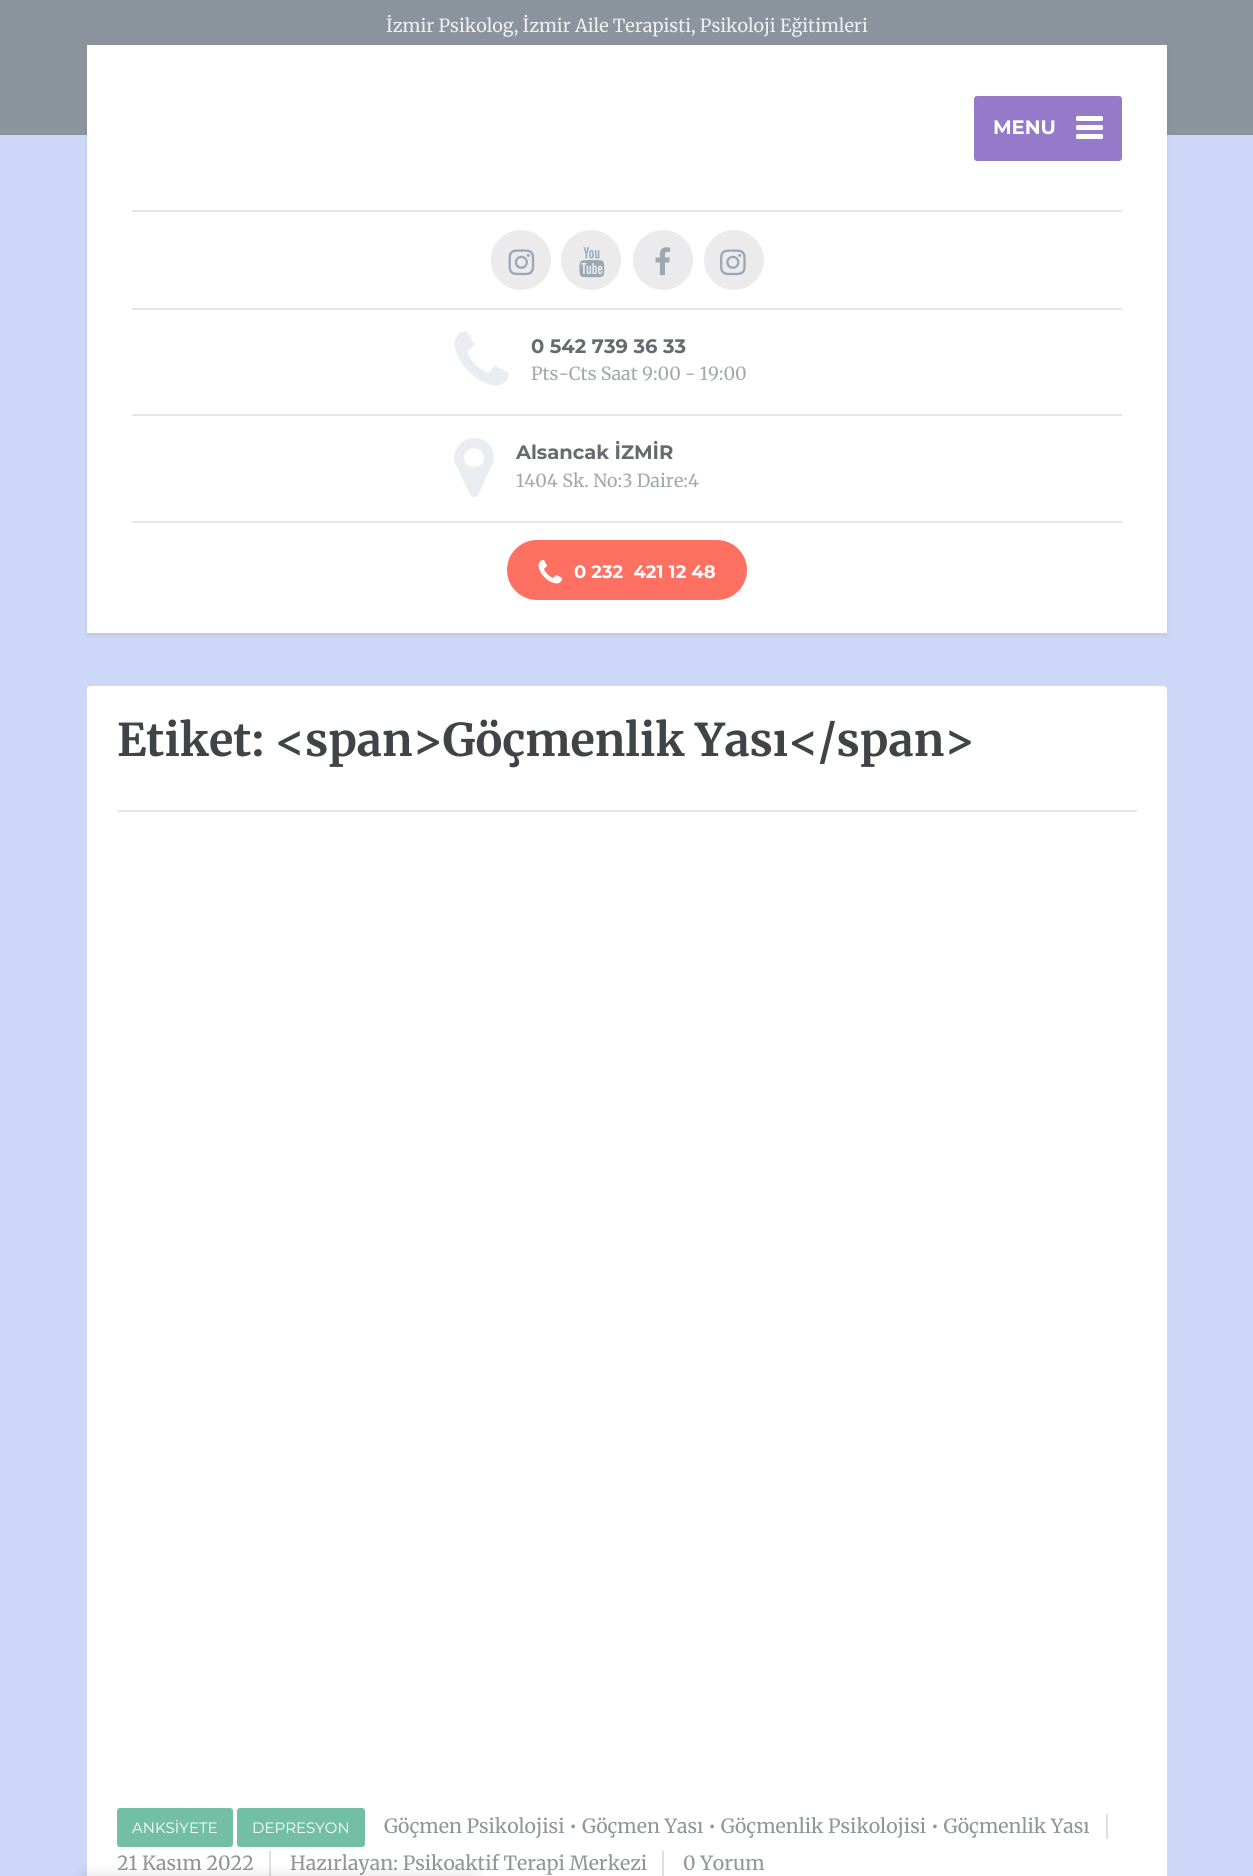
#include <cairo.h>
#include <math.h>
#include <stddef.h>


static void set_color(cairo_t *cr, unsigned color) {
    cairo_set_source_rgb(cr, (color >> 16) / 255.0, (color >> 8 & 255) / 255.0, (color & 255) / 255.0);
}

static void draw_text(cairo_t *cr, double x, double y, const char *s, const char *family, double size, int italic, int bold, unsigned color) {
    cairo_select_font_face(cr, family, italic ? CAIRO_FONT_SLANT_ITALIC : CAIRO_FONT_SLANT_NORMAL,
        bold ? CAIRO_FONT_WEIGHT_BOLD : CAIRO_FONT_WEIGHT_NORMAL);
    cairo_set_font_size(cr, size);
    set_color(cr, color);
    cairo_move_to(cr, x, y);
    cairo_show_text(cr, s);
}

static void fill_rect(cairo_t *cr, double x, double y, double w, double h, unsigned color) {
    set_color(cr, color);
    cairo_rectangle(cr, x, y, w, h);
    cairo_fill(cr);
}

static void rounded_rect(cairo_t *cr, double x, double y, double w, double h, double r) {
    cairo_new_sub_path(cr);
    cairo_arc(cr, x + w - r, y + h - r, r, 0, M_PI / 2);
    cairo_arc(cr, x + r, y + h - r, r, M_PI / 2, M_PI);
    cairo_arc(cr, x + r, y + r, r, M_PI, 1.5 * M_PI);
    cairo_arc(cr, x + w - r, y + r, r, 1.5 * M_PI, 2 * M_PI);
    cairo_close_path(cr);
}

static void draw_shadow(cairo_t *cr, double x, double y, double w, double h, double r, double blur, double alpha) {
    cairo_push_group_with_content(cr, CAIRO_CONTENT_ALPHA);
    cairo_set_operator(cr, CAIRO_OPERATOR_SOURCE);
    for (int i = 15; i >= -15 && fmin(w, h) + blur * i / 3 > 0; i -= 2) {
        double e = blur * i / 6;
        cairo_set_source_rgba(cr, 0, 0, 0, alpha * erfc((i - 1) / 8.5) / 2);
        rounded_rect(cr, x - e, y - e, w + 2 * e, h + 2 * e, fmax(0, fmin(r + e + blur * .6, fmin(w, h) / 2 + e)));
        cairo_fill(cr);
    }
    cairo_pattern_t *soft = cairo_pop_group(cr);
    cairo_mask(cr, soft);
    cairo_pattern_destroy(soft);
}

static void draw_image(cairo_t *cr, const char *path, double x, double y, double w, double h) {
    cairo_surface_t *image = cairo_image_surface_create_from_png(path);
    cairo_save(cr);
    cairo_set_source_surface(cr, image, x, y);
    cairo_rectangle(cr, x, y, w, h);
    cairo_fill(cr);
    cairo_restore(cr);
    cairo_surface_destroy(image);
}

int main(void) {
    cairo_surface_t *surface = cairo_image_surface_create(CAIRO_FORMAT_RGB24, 1253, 1876);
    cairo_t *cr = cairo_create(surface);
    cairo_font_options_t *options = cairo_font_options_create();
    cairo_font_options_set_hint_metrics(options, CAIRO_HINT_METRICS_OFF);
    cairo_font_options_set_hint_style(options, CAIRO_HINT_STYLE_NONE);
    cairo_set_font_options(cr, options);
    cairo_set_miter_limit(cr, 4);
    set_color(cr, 0xCDD7F7);
    cairo_paint(cr);
    fill_rect(cr, 0, 0, 1253, 135, 0x8B949C);
    draw_text(cr, 386, 32, "İzmir Psikolog, İzmir Aile Terapisti, Psikoloji Eğitimleri", "Merriweather", 18, 0, 0, 0xEDEFF2);
    set_color(cr, 0x1F1F1F);
    draw_shadow(cr, 87, 48, 1080, 588, 0, 2, 0.08);
    fill_rect(cr, 87, 45, 1080, 588, 0xFFFFFF);
    set_color(cr, 0x957ACA);
    rounded_rect(cr, 974, 96, 148, 65, 3);
    cairo_fill(cr);
    draw_text(cr, 993, 134, "MENU", "Montserrat", 19.5, 0, 1, 0xFFFFFF);
    rounded_rect(cr, 1076, 116, 27, 5, 1.5);
    cairo_fill(cr);
    rounded_rect(cr, 1076, 125, 27, 5, 1.5);
    cairo_fill(cr);
    rounded_rect(cr, 1076, 134, 27, 5, 1.5);
    cairo_fill(cr);
    fill_rect(cr, 132, 210, 990, 2, 0xE6E6E6);
    set_color(cr, 0xEBEBED);
    cairo_arc(cr, 521, 260, 30, 0, 2 * M_PI);
    cairo_fill(cr);
    draw_image(cr, "assets/img1.png", 508, 249, 27, 27);
    cairo_arc(cr, 591, 260, 30, 0, 2 * M_PI);
    cairo_fill(cr);
    draw_image(cr, "assets/img2.png", 579, 247, 26, 31);
    cairo_arc(cr, 663, 260, 30, 0, 2 * M_PI);
    cairo_fill(cr);
    draw_image(cr, "assets/img3.png", 655, 247, 16, 29);
    cairo_arc(cr, 734, 260, 30, 0, 2 * M_PI);
    cairo_fill(cr);
    draw_image(cr, "assets/img4.png", 720, 249, 26, 27);
    fill_rect(cr, 132, 308, 990, 2, 0xE6E6E6);
    draw_image(cr, "assets/img5.png", 454, 331, 55, 55);
    draw_text(cr, 531, 353, "0 542 739 36 33", "Montserrat", 19.5, 0, 1, 0x676B6F);
    draw_text(cr, 531, 380, "Pts-Cts Saat 9:00 - 19:00", "Merriweather", 18, 0, 0, 0xA4A8AC);
    fill_rect(cr, 132, 414, 990, 2, 0xE6E6E6);
    set_color(cr, 0xE9EDF1);
    cairo_new_path(cr);
    cairo_move_to(cr, 484, 458);
    cairo_curve_to(cr, 484, 470, 464, 470, 464, 458);
    cairo_curve_to(cr, 464, 445, 484, 445, 484, 458);
    cairo_close_path(cr);
    cairo_move_to(cr, 494, 458);
    cairo_curve_to(cr, 494, 433, 457, 430, 454, 458);
    cairo_curve_to(cr, 454, 462, 456, 466, 458, 469);
    cairo_line_to(cr, 470, 495);
    cairo_curve_to(cr, 471, 496, 472, 497, 474, 497);
    cairo_curve_to(cr, 478, 498, 479, 492, 481, 489);
    cairo_line_to(cr, 490, 469);
    cairo_curve_to(cr, 492, 465, 494, 462, 494, 458);
    cairo_close_path(cr);
    cairo_fill(cr);
    draw_text(cr, 516, 459, "Alsancak İZMİR", "Montserrat", 19.5, 0, 1, 0x676B6F);
    draw_text(cr, 516, 487, "1404 Sk. No:3 Daire:4", "Merriweather", 18, 0, 0, 0xA4A8AC);
    fill_rect(cr, 132, 521, 990, 2, 0xE6E6E6);
    set_color(cr, 0xFD7062);
    rounded_rect(cr, 508, 541, 238, 58, 29);
    cairo_fill_preserve(cr);
    cairo_stroke(cr);
    draw_image(cr, "assets/img6.png", 538, 559, 25, 25);
    draw_text(cr, 574, 578, "0 232  421 12 48", "Montserrat", 18, 0, 1, 0xFFFFFF);
    rounded_rect(cr, 87, 686, 1080, 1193, 3);
    cairo_fill(cr);
    fill_rect(cr, 117, 810, 1020, 2, 0xE6E6E6);
    draw_text(cr, 117, 756, "Etiket: <span>Göçmenlik Yası</span>", "Merriweather", 45, 0, 1, 0x414447);
    set_color(cr, 0x73BFA6);
    rounded_rect(cr, 117, 1808, 116, 39, 3);
    cairo_fill(cr);
    draw_text(cr, 132, 1833, "ANKSİYETE", "Montserrat", 15, 0, 0, 0xFFFFFF);
    set_color(cr, 0x73BFA6);
    rounded_rect(cr, 237, 1808, 128, 39, 3);
    cairo_fill(cr);
    draw_text(cr, 252, 1833, "DEPRESYON", "Montserrat", 15, 0, 0, 0xFFFFFF);
    draw_text(cr, 384, 1833, "Göçmen Psikolojisi • Göçmen Yası • Göçmenlik Psikolojisi • Göçmenlik Yası", "Merriweather", 19.5, 0, 0, 0x919699);
    fill_rect(cr, 1106, 1814, 2, 25, 0xE0E0E0);
    draw_text(cr, 117, 1870, "21 Kasım 2022", "Merriweather", 19.5, 0, 0, 0x919699);
    fill_rect(cr, 269, 1851, 2, 25, 0xE0E0E0);
    draw_text(cr, 290, 1870, "Hazırlayan: Psikoaktif Terapi Merkezi", "Merriweather", 19.5, 0, 0, 0x919699);
    fill_rect(cr, 662, 1851, 2, 25, 0xE0E0E0);
    draw_text(cr, 683, 1870, "0 Yorum", "Merriweather", 19.5, 0, 0, 0x919699);
    set_color(cr, 0x000000);
    draw_shadow(cr, 75, 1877, 408, 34, 12, 7.5, 0.15);
    cairo_surface_write_to_png(surface, "output.png");
    cairo_font_options_destroy(options);
    cairo_destroy(cr);
    cairo_surface_destroy(surface);
    return 0;
}
